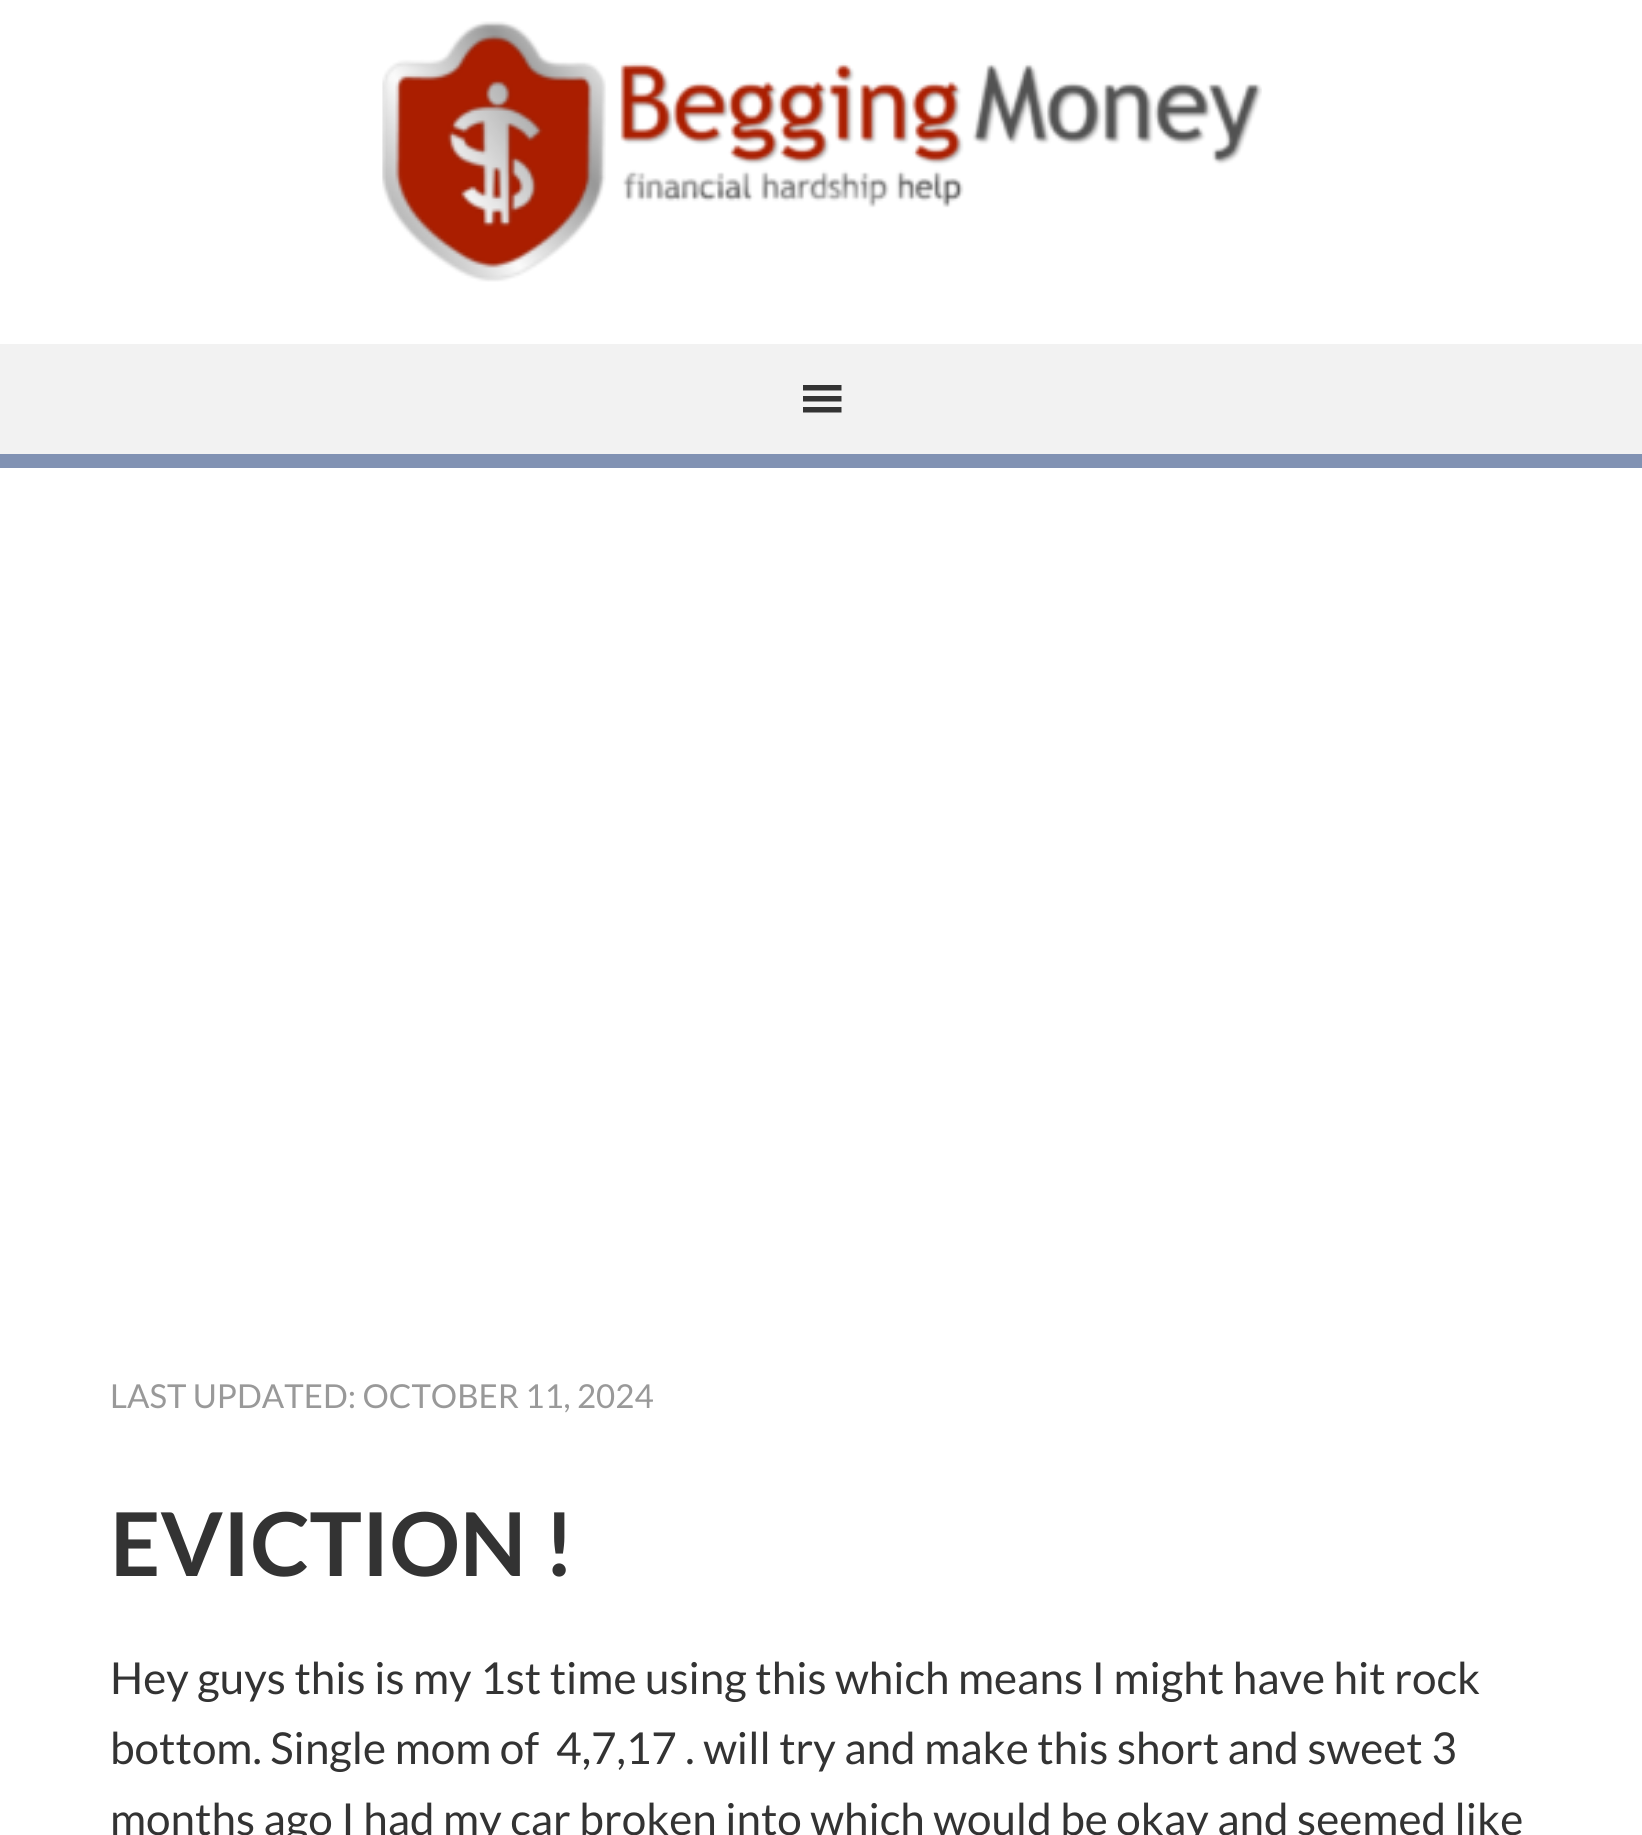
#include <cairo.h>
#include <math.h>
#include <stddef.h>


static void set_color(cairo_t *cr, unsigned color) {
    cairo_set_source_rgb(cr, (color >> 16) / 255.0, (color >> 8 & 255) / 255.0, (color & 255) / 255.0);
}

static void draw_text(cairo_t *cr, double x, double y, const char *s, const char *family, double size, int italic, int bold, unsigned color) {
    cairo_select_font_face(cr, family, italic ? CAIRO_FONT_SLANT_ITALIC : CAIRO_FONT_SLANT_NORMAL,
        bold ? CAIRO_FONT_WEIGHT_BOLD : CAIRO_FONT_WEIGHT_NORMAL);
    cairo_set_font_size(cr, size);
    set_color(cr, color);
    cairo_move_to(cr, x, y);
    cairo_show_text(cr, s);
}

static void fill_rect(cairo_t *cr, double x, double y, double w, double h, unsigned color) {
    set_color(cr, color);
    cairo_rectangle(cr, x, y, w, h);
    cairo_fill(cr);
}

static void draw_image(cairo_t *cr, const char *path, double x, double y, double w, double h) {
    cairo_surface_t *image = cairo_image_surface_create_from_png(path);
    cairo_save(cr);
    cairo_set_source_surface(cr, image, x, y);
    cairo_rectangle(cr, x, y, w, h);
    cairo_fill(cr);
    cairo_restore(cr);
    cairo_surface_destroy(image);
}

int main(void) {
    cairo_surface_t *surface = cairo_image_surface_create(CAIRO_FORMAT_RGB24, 1642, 1835);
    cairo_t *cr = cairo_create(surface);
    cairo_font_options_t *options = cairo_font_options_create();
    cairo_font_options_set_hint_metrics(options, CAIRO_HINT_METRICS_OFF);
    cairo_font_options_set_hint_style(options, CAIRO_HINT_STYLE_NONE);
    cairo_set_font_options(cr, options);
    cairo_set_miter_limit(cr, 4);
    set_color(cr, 0xFFFFFF);
    cairo_paint(cr);
    fill_rect(cr, 0, 454, 1642, 14, 0x8192B3);
    draw_image(cr, "assets/img1.png", 382, 21, 880, 261);
    fill_rect(cr, 0, 344, 1642, 110, 0xF2F2F2);
    set_color(cr, 0x333333);
    cairo_new_path(cr);
    cairo_move_to(cr, 803, 412.5);
    cairo_line_to(cr, 841.5, 412.5);
    cairo_line_to(cr, 841.5, 407);
    cairo_line_to(cr, 803, 407);
    cairo_close_path(cr);
    cairo_move_to(cr, 803, 385);
    cairo_line_to(cr, 803, 390.5);
    cairo_line_to(cr, 841.5, 390.5);
    cairo_line_to(cr, 841.5, 385);
    cairo_close_path(cr);
    cairo_move_to(cr, 803, 401.5);
    cairo_line_to(cr, 841.5, 401.5);
    cairo_line_to(cr, 841.5, 396);
    cairo_line_to(cr, 803, 396);
    cairo_close_path(cr);
    cairo_fill(cr);
    draw_text(cr, 110, 1408, "LAST UPDATED: OCTOBER 11, 2024", "Lato", 33, 0, 0, 0x999999);
    draw_text(cr, 110, 1576, "EVICTION !", "Lato", 88, 0, 1, 0x333333);
    draw_text(cr, 110, 1694, "Hey guys this is my 1st time using this which means I might have hit rock", "Lato", 44, 0, 0, 0x333333);
    draw_text(cr, 110, 1764, "bottom. Single mom of  4,7,17 . will try and make this short and sweet 3", "Lato", 44, 0, 0, 0x333333);
    draw_text(cr, 110, 1835, "months ago I had my car broken into which would be okay and seemed like", "Lato", 44, 0, 0, 0x333333);
    cairo_surface_write_to_png(surface, "output.png");
    cairo_font_options_destroy(options);
    cairo_destroy(cr);
    cairo_surface_destroy(surface);
    return 0;
}
